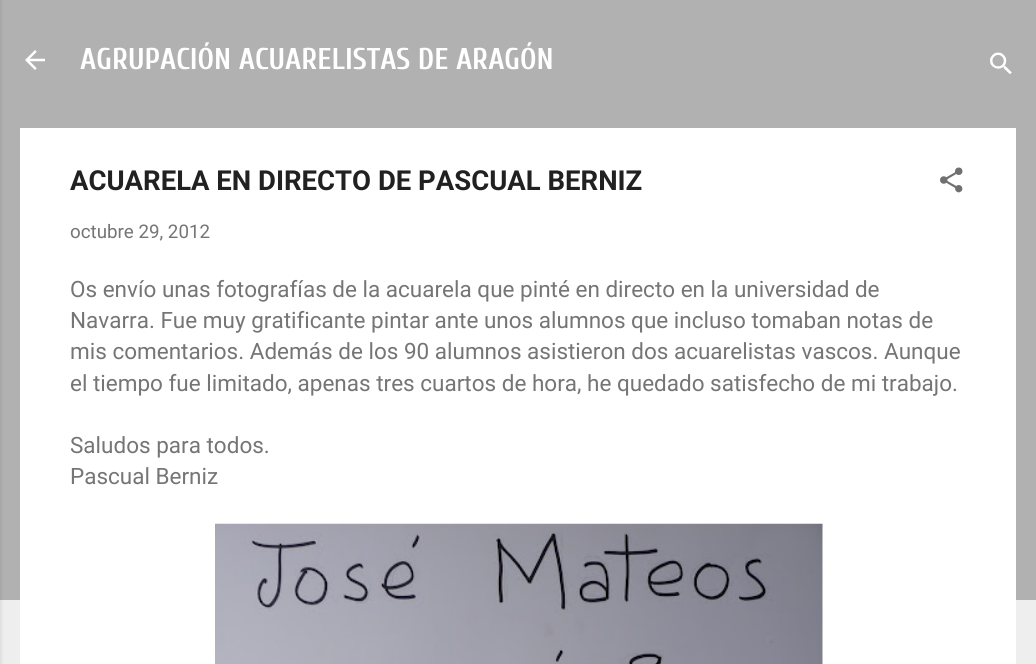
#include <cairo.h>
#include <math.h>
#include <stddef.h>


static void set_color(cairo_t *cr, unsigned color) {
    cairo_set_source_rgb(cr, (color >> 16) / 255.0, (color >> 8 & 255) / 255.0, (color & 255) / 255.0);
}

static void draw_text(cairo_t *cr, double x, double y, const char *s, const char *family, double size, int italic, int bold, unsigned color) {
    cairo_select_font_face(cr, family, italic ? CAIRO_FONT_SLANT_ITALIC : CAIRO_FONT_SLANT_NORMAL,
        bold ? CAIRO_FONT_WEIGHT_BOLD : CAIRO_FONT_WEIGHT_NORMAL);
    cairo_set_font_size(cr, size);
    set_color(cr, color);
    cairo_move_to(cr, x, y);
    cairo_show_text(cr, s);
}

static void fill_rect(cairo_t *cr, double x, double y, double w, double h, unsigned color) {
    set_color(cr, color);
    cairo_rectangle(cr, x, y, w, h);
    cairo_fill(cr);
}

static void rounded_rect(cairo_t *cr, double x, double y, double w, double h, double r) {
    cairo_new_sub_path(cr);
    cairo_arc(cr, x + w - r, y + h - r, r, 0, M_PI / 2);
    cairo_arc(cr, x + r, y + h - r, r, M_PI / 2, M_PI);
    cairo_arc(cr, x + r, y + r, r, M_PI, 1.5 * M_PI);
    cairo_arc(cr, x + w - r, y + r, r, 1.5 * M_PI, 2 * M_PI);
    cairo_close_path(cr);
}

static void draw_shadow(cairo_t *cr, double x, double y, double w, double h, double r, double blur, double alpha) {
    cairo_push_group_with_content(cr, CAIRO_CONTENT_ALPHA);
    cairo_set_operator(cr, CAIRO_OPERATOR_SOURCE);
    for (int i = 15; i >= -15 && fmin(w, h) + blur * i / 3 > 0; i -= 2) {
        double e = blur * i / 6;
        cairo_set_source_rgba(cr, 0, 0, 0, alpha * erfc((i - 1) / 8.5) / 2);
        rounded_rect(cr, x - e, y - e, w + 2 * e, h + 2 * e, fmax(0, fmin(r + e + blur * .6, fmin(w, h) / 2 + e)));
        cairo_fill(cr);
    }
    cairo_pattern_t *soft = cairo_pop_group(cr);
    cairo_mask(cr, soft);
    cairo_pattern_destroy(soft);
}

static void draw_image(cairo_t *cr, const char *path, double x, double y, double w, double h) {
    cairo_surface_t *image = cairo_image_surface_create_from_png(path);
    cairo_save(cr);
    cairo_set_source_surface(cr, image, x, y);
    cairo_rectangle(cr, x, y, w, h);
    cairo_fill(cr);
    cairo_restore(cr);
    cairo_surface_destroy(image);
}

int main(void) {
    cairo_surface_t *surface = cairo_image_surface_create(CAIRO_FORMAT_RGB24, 1036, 664);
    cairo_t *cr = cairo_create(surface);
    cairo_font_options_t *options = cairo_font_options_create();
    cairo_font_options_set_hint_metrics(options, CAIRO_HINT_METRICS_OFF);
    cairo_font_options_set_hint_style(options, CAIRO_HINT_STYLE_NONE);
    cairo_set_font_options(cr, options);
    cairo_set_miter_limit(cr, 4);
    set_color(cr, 0xEEEEEE);
    cairo_paint(cr);
    fill_rect(cr, 0, 0, 1036, 600, 0xB1B1B1);
    set_color(cr, 0x000000);
    draw_shadow(cr, -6, 1, 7, 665, 0, 2, 0.1);
    draw_image(cr, "assets/img1.png", 25, 50, 20, 20);
    draw_text(cr, 80, 69, "AGRUPACIÓN ACUARELISTAS DE ARAGÓN", "Cuprum", 30, 0, 1, 0xFFFFFF);
    draw_image(cr, "assets/img2.png", 990, 52, 22, 22);
    fill_rect(cr, 20, 128, 996, 536, 0xFFFFFF);
    draw_text(cr, 70, 190, "ACUARELA EN DIRECTO DE PASCUAL BERNIZ", "Roboto", 27.5, 0, 1, 0x212121);
    draw_image(cr, "assets/img3.png", 940, 167, 23, 26);
    draw_text(cr, 70, 238, "octubre 29, 2012", "Roboto", 18.75, 0, 0, 0x757575);
    draw_text(cr, 70, 297, "Os envío unas fotografías de la acuarela que pinté en directo en la universidad de", "Roboto", 22.5, 0, 0, 0x757575);
    draw_text(cr, 70, 328, "Navarra. Fue muy gratificante pintar ante unos alumnos que incluso tomaban notas de", "Roboto", 22.5, 0, 0, 0x757575);
    draw_text(cr, 70, 359, "mis comentarios. Además de los 90 alumnos asistieron dos acuarelistas vascos. Aunque", "Roboto", 22.5, 0, 0, 0x757575);
    draw_text(cr, 70, 391, "el tiempo fue limitado, apenas tres cuartos de hora, he quedado satisfecho de mi trabajo.", "Roboto", 22.5, 0, 0, 0x757575);
    draw_text(cr, 70, 453, "Saludos para todos.", "Roboto", 22.5, 0, 0, 0x757575);
    draw_text(cr, 70, 484, "Pascual Berniz", "Roboto", 22.5, 0, 0, 0x757575);
    draw_image(cr, "assets/img4.png", 215, 523, 608, 141);
    cairo_surface_write_to_png(surface, "output.png");
    cairo_font_options_destroy(options);
    cairo_destroy(cr);
    cairo_surface_destroy(surface);
    return 0;
}
